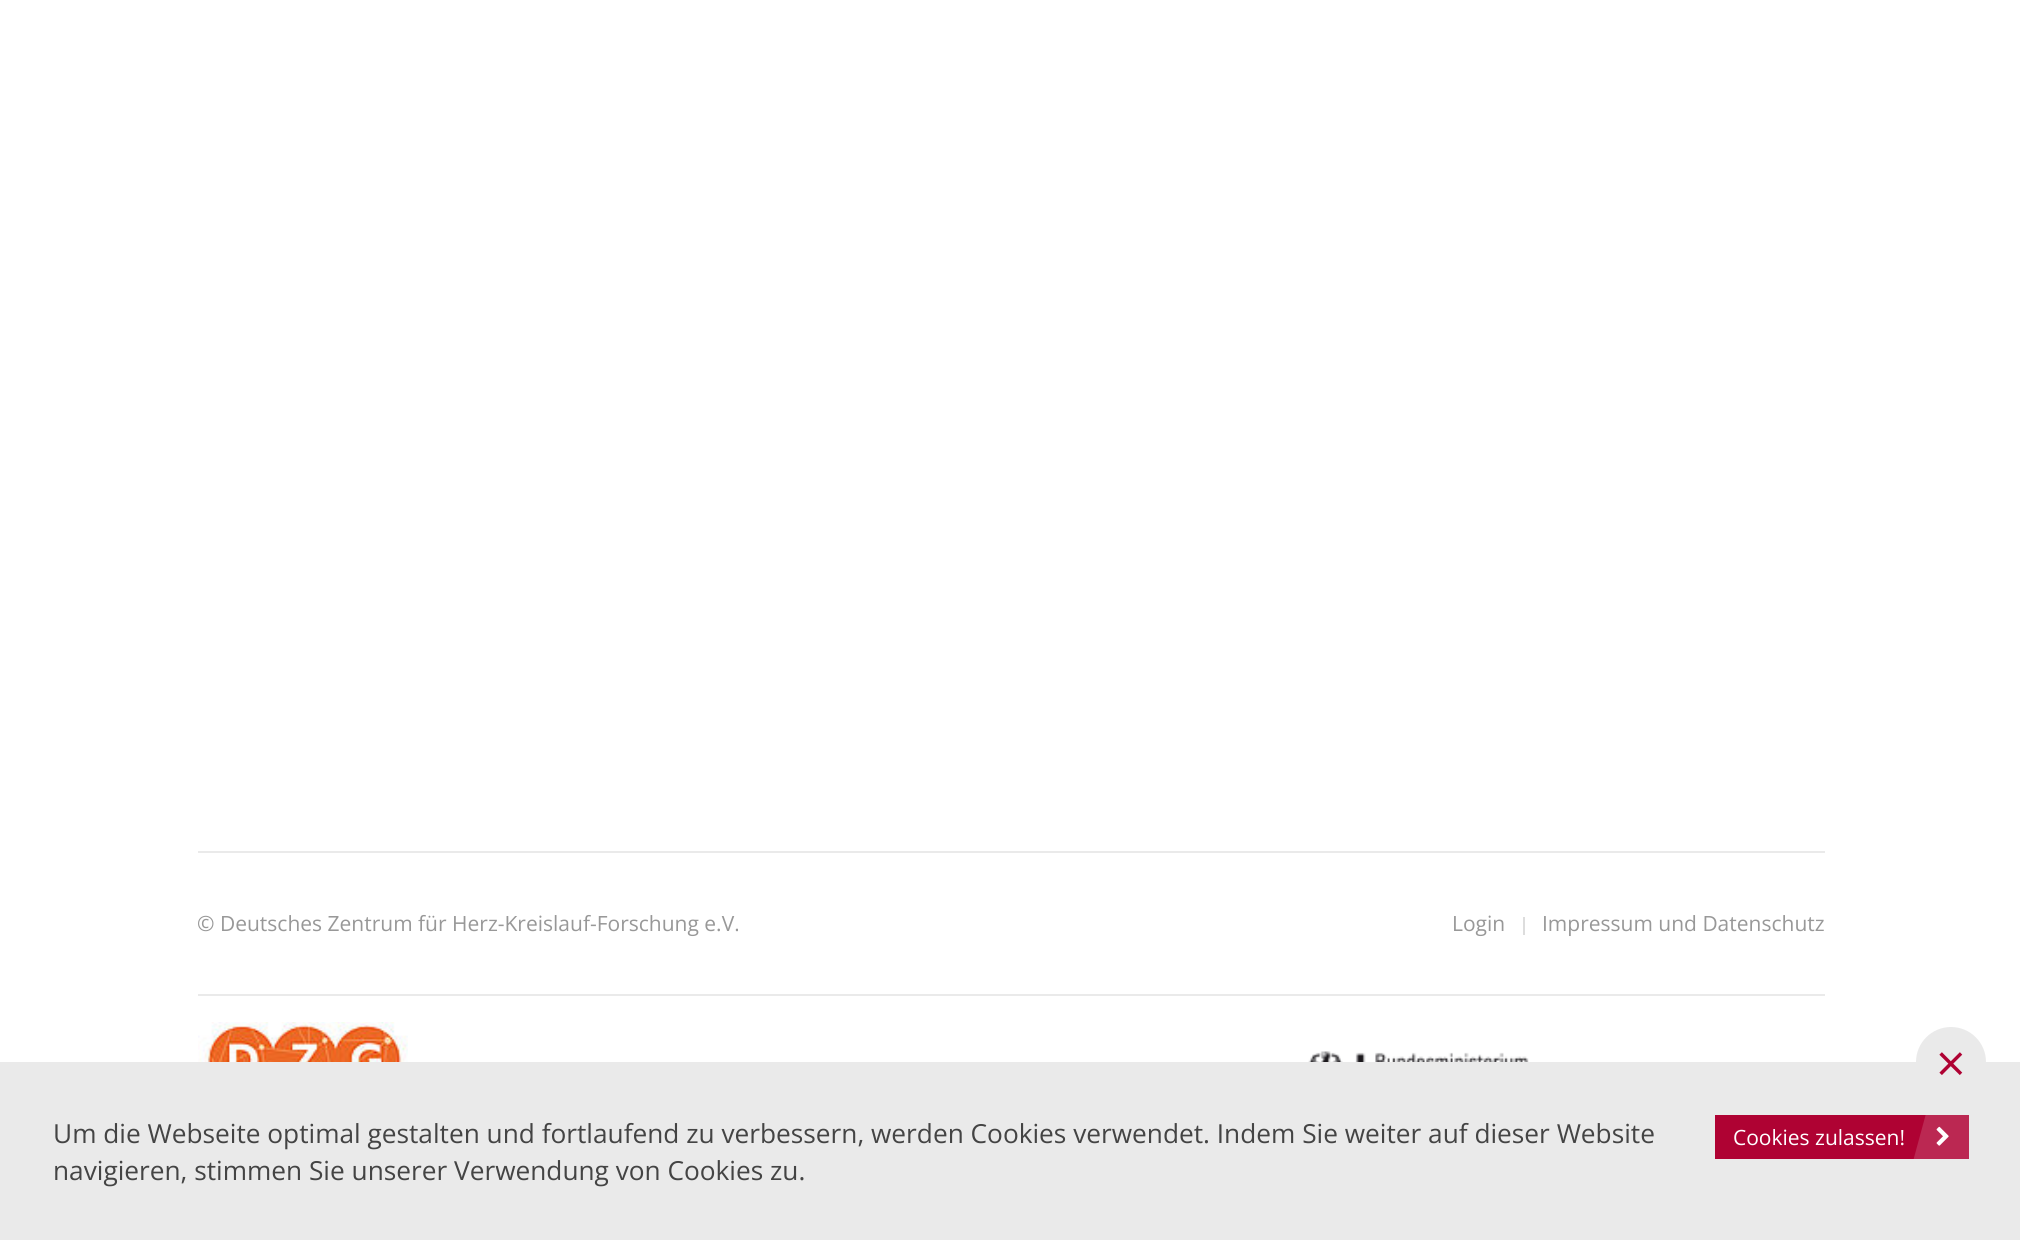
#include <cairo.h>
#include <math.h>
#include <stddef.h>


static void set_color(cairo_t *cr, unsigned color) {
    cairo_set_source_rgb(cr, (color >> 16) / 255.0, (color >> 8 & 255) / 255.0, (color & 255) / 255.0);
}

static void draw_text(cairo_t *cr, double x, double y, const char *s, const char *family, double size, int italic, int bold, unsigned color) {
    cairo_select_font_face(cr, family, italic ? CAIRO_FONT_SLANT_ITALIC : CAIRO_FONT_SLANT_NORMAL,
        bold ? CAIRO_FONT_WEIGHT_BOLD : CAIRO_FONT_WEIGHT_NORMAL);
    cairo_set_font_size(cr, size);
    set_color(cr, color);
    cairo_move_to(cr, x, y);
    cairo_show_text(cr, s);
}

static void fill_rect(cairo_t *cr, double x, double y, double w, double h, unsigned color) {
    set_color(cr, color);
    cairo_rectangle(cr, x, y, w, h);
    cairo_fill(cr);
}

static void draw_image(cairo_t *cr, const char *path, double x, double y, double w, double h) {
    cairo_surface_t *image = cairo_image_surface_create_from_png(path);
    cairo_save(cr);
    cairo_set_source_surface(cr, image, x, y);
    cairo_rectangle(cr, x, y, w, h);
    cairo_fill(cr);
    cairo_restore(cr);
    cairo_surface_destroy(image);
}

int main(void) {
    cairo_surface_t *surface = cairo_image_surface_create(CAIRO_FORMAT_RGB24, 2020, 1240);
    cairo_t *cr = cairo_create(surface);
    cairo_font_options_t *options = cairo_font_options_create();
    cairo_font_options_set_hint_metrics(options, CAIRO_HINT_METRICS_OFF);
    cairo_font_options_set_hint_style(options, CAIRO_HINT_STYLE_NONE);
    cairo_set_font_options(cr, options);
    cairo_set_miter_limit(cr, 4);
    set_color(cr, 0xFFFFFF);
    cairo_paint(cr);
    fill_rect(cr, 198, 851, 1627, 2, 0xEAEAEA);
    draw_text(cr, 197, 931, "© Deutsches Zentrum für Herz-Kreislauf-Forschung e.V.", "Open Sans", 21, 0, 0, 0x989898);
    draw_text(cr, 1452, 931, "Login", "Open Sans", 21, 0, 0, 0x989898);
    fill_rect(cr, 1523, 917, 2, 18, 0xDDDDDD);
    draw_text(cr, 1542, 931, "Impressum und Datenschutz", "Open Sans", 21, 0, 0, 0x989898);
    fill_rect(cr, 198, 994, 1627, 2, 0xEAEAEA);
    draw_image(cr, "assets/img1.png", 198, 1022, 210, 40);
    draw_image(cr, "assets/img2.png", 1303, 1051, 226, 11);
    fill_rect(cr, 0, 1062, 2020, 178, 0xEAEAEA);
    cairo_arc(cr, 1951, 1062, 35, 0, 2 * M_PI);
    cairo_fill(cr);
    draw_text(cr, 1936, 1082, "×", "Open Sans", 52, 0, 0, 0xAF0233);
    draw_text(cr, 53, 1143, "Um die Webseite optimal gestalten und fortlaufend zu verbessern, werden Cookies verwendet. Indem Sie weiter auf dieser Website", "Open Sans", 26.25, 0, 0, 0x444444);
    draw_text(cr, 53, 1180, "navigieren, stimmen Sie unserer Verwendung von Cookies zu.", "Open Sans", 26.25, 0, 0, 0x444444);
    fill_rect(cr, 1715, 1115, 211, 44, 0xAF0233);
    cairo_save(cr);
    cairo_rectangle(cr, 1715, 1115, 254, 44);
    cairo_clip(cr);
    set_color(cr, 0xBB2852);
    cairo_new_path(cr);
    cairo_move_to(cr, 1940, 1062);
    cairo_line_to(cr, 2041, 1089);
    cairo_line_to(cr, 1998, 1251);
    cairo_line_to(cr, 1896, 1224);
    cairo_close_path(cr);
    cairo_fill(cr);
    cairo_restore(cr);
    draw_text(cr, 1733, 1145, "Cookies zulassen!", "Open Sans", 21, 0, 0, 0xFFFFFF);
    draw_image(cr, "assets/img3.png", 1936, 1126, 13, 20);
    cairo_surface_write_to_png(surface, "output.png");
    cairo_font_options_destroy(options);
    cairo_destroy(cr);
    cairo_surface_destroy(surface);
    return 0;
}
